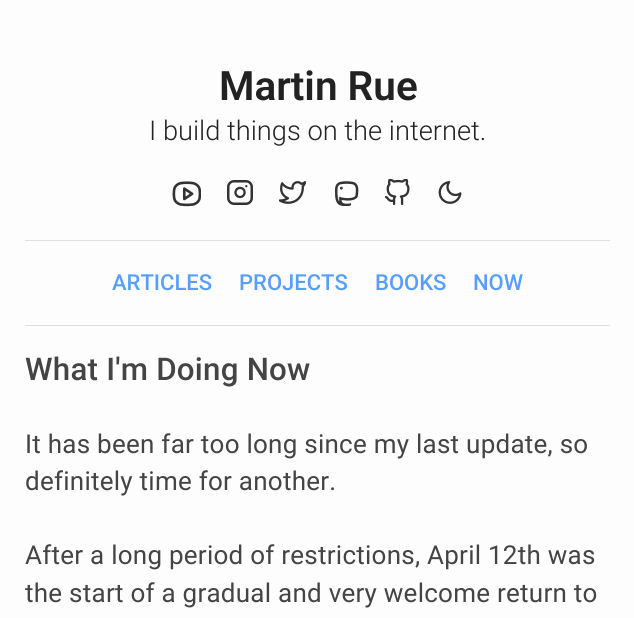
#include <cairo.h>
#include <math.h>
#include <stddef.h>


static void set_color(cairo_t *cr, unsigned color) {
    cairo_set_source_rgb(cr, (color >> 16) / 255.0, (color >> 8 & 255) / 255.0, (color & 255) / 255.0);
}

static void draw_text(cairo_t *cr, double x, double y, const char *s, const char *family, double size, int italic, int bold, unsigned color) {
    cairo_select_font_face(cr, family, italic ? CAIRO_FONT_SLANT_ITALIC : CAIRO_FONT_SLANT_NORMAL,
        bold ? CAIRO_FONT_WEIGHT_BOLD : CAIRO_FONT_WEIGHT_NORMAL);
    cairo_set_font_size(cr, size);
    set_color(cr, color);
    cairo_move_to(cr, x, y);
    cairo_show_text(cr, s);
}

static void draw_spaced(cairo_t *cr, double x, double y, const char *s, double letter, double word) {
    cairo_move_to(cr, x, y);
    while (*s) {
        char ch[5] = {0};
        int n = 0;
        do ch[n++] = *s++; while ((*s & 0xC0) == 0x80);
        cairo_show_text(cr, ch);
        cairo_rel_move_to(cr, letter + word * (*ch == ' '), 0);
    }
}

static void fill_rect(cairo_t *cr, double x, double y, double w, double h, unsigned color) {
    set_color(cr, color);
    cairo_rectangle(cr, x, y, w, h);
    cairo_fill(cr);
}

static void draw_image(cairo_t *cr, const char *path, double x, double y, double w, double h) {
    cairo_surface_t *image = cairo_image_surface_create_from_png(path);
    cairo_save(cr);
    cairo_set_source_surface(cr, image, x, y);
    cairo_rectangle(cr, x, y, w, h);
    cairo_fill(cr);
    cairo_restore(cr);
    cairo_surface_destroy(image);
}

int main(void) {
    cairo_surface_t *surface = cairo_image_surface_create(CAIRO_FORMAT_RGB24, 634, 618);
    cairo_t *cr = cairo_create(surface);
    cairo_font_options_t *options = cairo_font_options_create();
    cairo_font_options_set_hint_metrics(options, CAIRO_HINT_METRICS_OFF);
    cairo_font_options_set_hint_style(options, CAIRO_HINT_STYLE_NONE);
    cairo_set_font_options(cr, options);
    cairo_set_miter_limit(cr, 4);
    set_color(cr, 0xFDFDFD);
    cairo_paint(cr);
    fill_rect(cr, 25, 240, 585, 1, 0xE0E0E0);
    draw_text(cr, 219, 100, "Martin Rue", "Roboto SemiBold", 40.5, 0, 0, 0x222222);
    draw_text(cr, 149, 140, "I build things on the internet.", "Roboto Light", 27.25, 0, 0, 0x222222);
    draw_image(cr, "assets/img1.png", 172, 181, 29, 26);
    draw_image(cr, "assets/img2.png", 227, 180, 26, 25);
    draw_image(cr, "assets/img3.png", 279, 181, 27, 23);
    draw_image(cr, "assets/img4.png", 335, 181, 24, 25);
    draw_image(cr, "assets/img5.png", 384, 179, 26, 27);
    draw_image(cr, "assets/img6.png", 438, 181, 24, 23);
    fill_rect(cr, 25, 325, 585, 1, 0xE0E0E0);
    draw_text(cr, 112, 290, "ARTICLES", "Roboto Medium", 22, 0, 0, 0x579EFF);
    draw_text(cr, 239, 290, "PROJECTS", "Roboto Medium", 22, 0, 0, 0x579EFF);
    draw_text(cr, 375, 290, "BOOKS", "Roboto Medium", 22, 0, 0, 0x579EFF);
    draw_text(cr, 473, 290, "NOW", "Roboto Medium", 22, 0, 0, 0x579EFF);
    cairo_set_font_size(cr, 31.25);
    set_color(cr, 0x444444);
    draw_spaced(cr, 25, 380, "What I'm Doing Now", 0.25, 0);
    cairo_select_font_face(cr, "Roboto", CAIRO_FONT_SLANT_NORMAL, CAIRO_FONT_WEIGHT_NORMAL);
    cairo_set_font_size(cr, 26);
    draw_spaced(cr, 25, 453, "It has been far too long since my last update, so", 0.25, 0);
    draw_spaced(cr, 25, 490, "definitely time for another.", 0.25, 0);
    draw_spaced(cr, 25, 564, "After a long period of restrictions, April 12th was", 0.25, 0);
    draw_spaced(cr, 25, 602, "the start of a gradual and very welcome return to", 0.25, 0);
    cairo_surface_write_to_png(surface, "output.png");
    cairo_font_options_destroy(options);
    cairo_destroy(cr);
    cairo_surface_destroy(surface);
    return 0;
}
